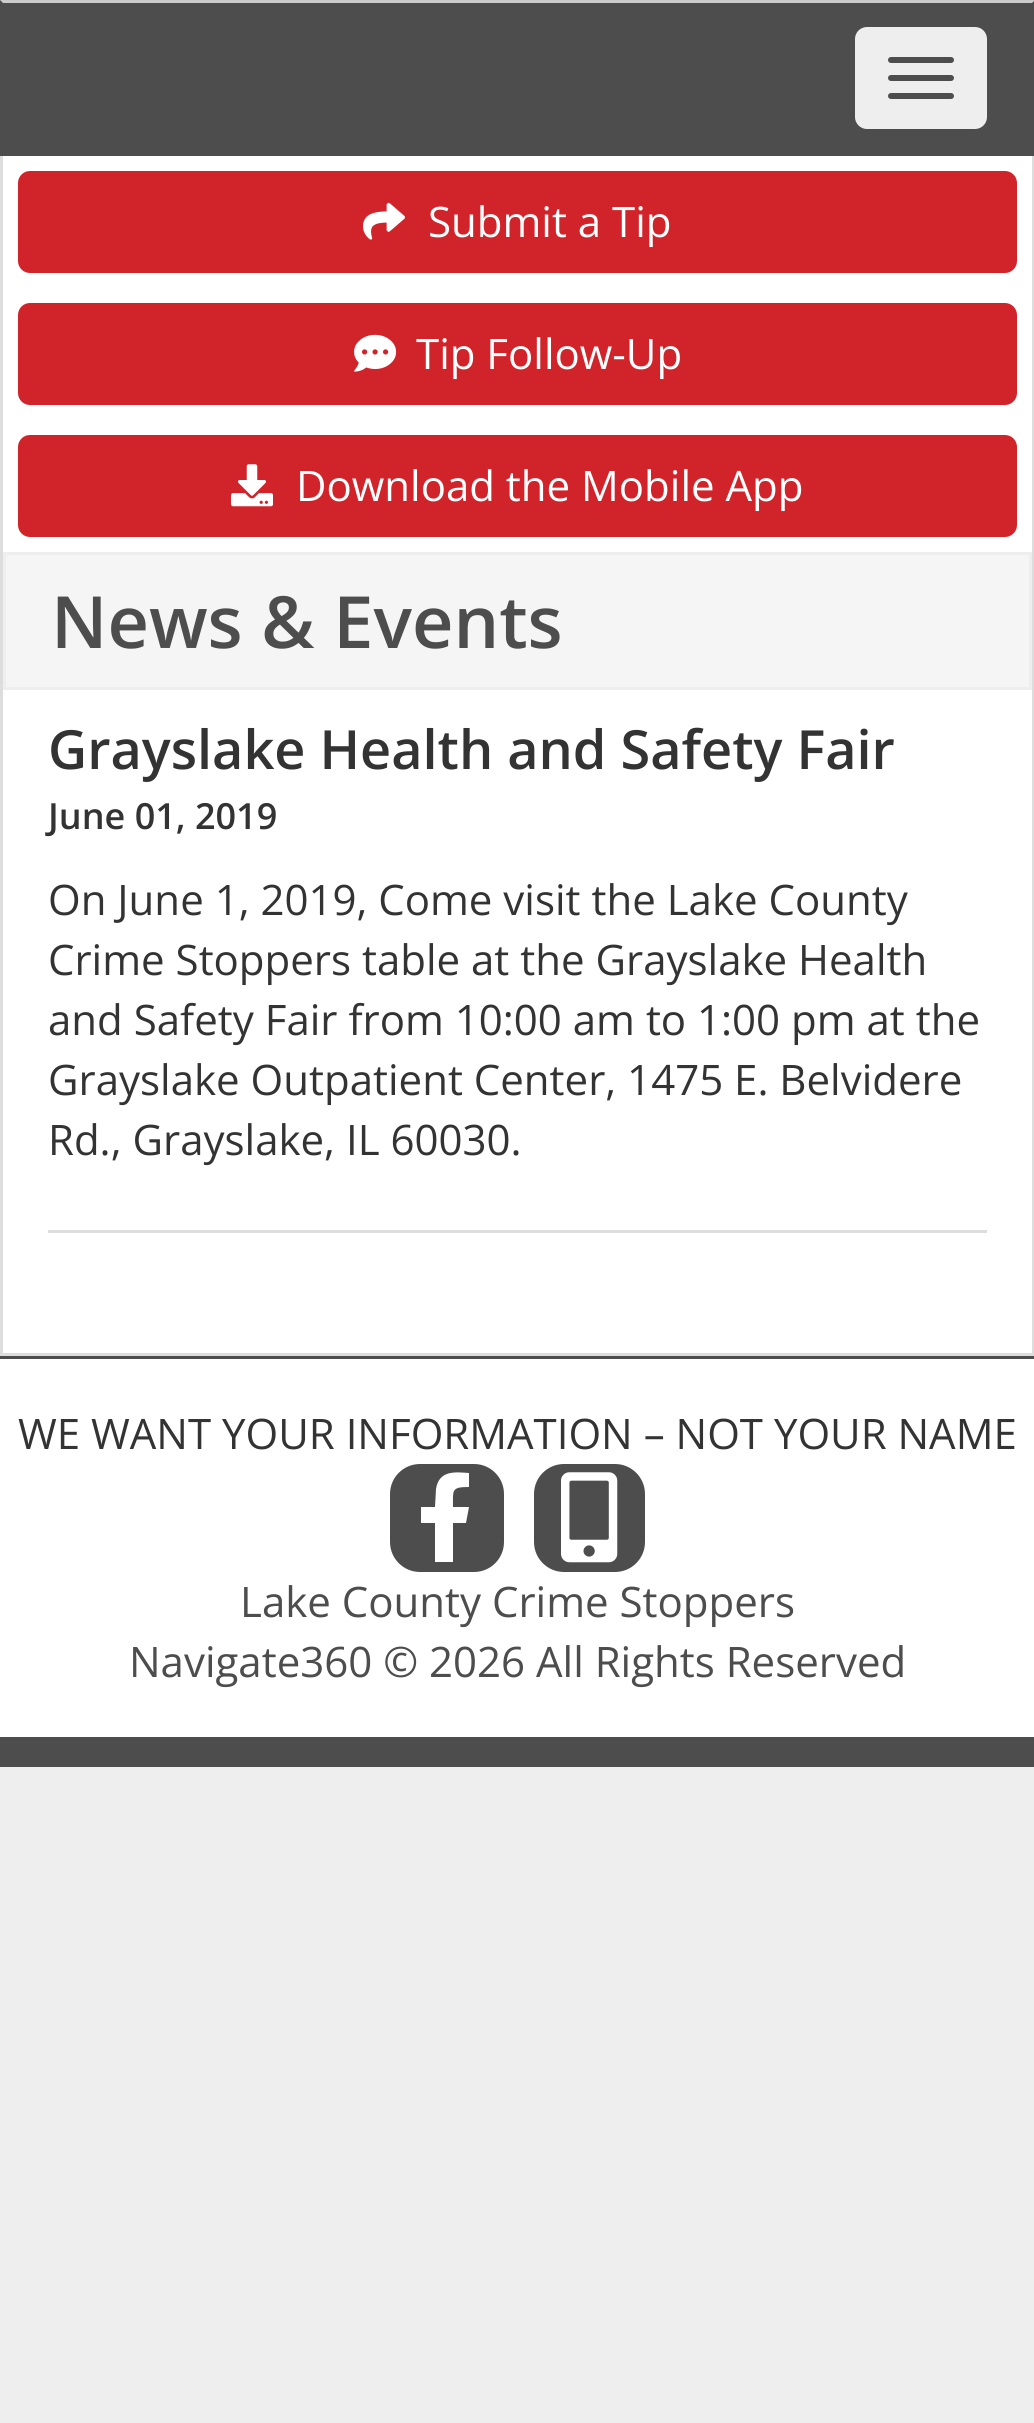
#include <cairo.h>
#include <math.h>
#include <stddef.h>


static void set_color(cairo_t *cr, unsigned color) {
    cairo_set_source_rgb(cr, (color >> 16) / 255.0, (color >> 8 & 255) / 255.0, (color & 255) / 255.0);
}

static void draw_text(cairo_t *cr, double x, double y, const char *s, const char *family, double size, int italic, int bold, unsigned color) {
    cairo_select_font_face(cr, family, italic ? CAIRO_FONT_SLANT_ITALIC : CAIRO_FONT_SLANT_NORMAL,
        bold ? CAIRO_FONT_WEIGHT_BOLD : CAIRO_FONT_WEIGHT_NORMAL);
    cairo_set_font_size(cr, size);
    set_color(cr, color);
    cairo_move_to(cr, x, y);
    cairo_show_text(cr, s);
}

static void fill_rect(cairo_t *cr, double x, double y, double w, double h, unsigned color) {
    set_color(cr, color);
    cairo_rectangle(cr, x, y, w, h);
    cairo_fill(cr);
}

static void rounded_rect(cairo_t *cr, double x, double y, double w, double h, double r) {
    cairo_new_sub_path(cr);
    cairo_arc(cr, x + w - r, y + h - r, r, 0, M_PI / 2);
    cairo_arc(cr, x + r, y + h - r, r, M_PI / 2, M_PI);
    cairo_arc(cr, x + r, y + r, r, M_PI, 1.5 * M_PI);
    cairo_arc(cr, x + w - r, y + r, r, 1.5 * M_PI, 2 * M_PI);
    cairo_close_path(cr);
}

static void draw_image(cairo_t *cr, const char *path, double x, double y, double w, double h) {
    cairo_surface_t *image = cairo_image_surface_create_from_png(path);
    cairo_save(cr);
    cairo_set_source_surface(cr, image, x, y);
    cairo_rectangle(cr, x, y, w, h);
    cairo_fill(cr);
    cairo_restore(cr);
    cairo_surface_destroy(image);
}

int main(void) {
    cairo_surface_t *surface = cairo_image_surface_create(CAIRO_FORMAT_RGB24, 1034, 2423);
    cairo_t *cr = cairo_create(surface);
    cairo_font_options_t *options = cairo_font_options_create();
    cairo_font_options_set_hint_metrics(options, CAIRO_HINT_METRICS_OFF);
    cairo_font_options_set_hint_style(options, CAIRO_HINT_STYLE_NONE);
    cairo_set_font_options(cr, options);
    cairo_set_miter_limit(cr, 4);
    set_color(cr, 0xEEEEEE);
    cairo_paint(cr);
    fill_rect(cr, 0, 0, 1034, 156, 0x4D4D4D);
    set_color(cr, 0xCCCCCC);
    cairo_new_path(cr);
    cairo_move_to(cr, 0, 0);
    cairo_line_to(cr, 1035, 0);
    cairo_line_to(cr, 1032, 3);
    cairo_line_to(cr, 3, 3);
    cairo_close_path(cr);
    cairo_fill(cr);
    set_color(cr, 0xEEEEEE);
    rounded_rect(cr, 855, 27, 132, 102, 12);
    cairo_fill(cr);
    set_color(cr, 0x4D4D4D);
    rounded_rect(cr, 888, 57, 66, 6, 3);
    cairo_fill(cr);
    rounded_rect(cr, 888, 75, 66, 6, 3);
    cairo_fill(cr);
    rounded_rect(cr, 888, 93, 66, 6, 3);
    cairo_fill(cr);
    fill_rect(cr, 3, 156, 1029, 396, 0xFFFFFF);
    fill_rect(cr, 1032, 156, 2, 1200, 0xDDDDDD);
    fill_rect(cr, 0, 156, 3, 396, 0xDDDDDD);
    set_color(cr, 0xD1242A);
    rounded_rect(cr, 19.5, 172.5, 996, 99, 10.5);
    cairo_fill_preserve(cr);
    cairo_set_line_width(cr, 3);
    cairo_stroke(cr);
    draw_image(cr, "assets/img1.png", 363, 202, 42, 38);
    draw_text(cr, 428, 237, "Submit a Tip", "Open Sans", 42, 0, 0, 0xFFFFFF);
    set_color(cr, 0xD1242A);
    rounded_rect(cr, 19.5, 304.5, 996, 99, 10.5);
    cairo_fill_preserve(cr);
    cairo_stroke(cr);
    draw_image(cr, "assets/img2.png", 354, 334, 43, 38);
    draw_text(cr, 416, 369, "Tip Follow-Up", "Open Sans", 42, 0, 0, 0xFFFFFF);
    set_color(cr, 0xD1242A);
    rounded_rect(cr, 19.5, 436.5, 996, 99, 10.5);
    cairo_fill_preserve(cr);
    cairo_stroke(cr);
    draw_image(cr, "assets/img3.png", 231, 464, 42, 43);
    draw_text(cr, 296, 501, "Download the Mobile App", "Open Sans", 42, 0, 0, 0xFFFFFF);
    fill_rect(cr, 3, 690, 1029, 663, 0xFFFFFF);
    fill_rect(cr, 0, 1353, 1034, 3, 0xDDDDDD);
    fill_rect(cr, 0, 552, 3, 804, 0xDDDDDD);
    fill_rect(cr, 6, 555, 1023, 132, 0xF5F5F5);
    draw_text(cr, 51, 648, "News & Events", "Open Sans SemiBold", 72, 0, 0, 0x4D4D4D);
    draw_text(cr, 48, 769, "Grayslake Health and Safety Fair", "Open Sans SemiBold", 54, 0, 0, 0x333333);
    draw_text(cr, 48, 829, "June 01, 2019", "Open Sans SemiBold", 36, 0, 0, 0x333333);
    draw_text(cr, 48, 915, "On June 1, 2019, Come visit the Lake County", "Open Sans", 42, 0, 0, 0x333333);
    draw_text(cr, 48, 975, "Crime Stoppers table at the Grayslake Health", "Open Sans", 42, 0, 0, 0x333333);
    draw_text(cr, 48, 1035, "and Safety Fair from 10:00 am to 1:00 pm at the", "Open Sans", 42, 0, 0, 0x333333);
    draw_text(cr, 48, 1095, "Grayslake Outpatient Center, 1475 E. Belvidere", "Open Sans", 42, 0, 0, 0x333333);
    draw_text(cr, 48, 1155, "Rd., Grayslake, IL 60030.", "Open Sans", 42, 0, 0, 0x333333);
    fill_rect(cr, 48, 1230, 939, 3, 0xDDDDDD);
    fill_rect(cr, 0, 1359, 1034, 378, 0xFFFFFF);
    fill_rect(cr, 0, 1356, 1034, 3, 0x4D4D4D);
    fill_rect(cr, 0, 1737, 1034, 30, 0x4D4D4D);
    draw_text(cr, 18, 1449, "WE WANT YOUR INFORMATION – NOT YOUR NAME", "Open Sans", 42, 0, 0, 0x333333);
    set_color(cr, 0x4D4D4D);
    rounded_rect(cr, 390, 1464, 114, 108, 30);
    cairo_fill(cr);
    set_color(cr, 0xFFFFFF);
    cairo_new_path(cr);
    cairo_move_to(cr, 466, 1523);
    cairo_line_to(cr, 453, 1523);
    cairo_line_to(cr, 453, 1562);
    cairo_line_to(cr, 435, 1562);
    cairo_line_to(cr, 435, 1523);
    cairo_line_to(cr, 421, 1523);
    cairo_line_to(cr, 421, 1507);
    cairo_line_to(cr, 435, 1507);
    cairo_line_to(cr, 436, 1489);
    cairo_curve_to(cr, 439, 1470, 455, 1472, 469, 1473);
    cairo_line_to(cr, 469, 1487);
    cairo_curve_to(cr, 451, 1487, 453, 1490, 453, 1507);
    cairo_line_to(cr, 469, 1507);
    cairo_close_path(cr);
    cairo_fill(cr);
    set_color(cr, 0x4D4D4D);
    rounded_rect(cr, 534, 1464, 111, 108, 30);
    cairo_fill(cr);
    draw_image(cr, "assets/img4.png", 561, 1472, 57, 91);
    draw_text(cr, 240, 1617, "Lake County Crime Stoppers", "Open Sans", 42, 0, 0, 0x4D4D4D);
    draw_text(cr, 129, 1677, "Navigate360 © 2026 All Rights Reserved", "Open Sans", 42, 0, 0, 0x4D4D4D);
    cairo_surface_write_to_png(surface, "output.png");
    cairo_font_options_destroy(options);
    cairo_destroy(cr);
    cairo_surface_destroy(surface);
    return 0;
}
